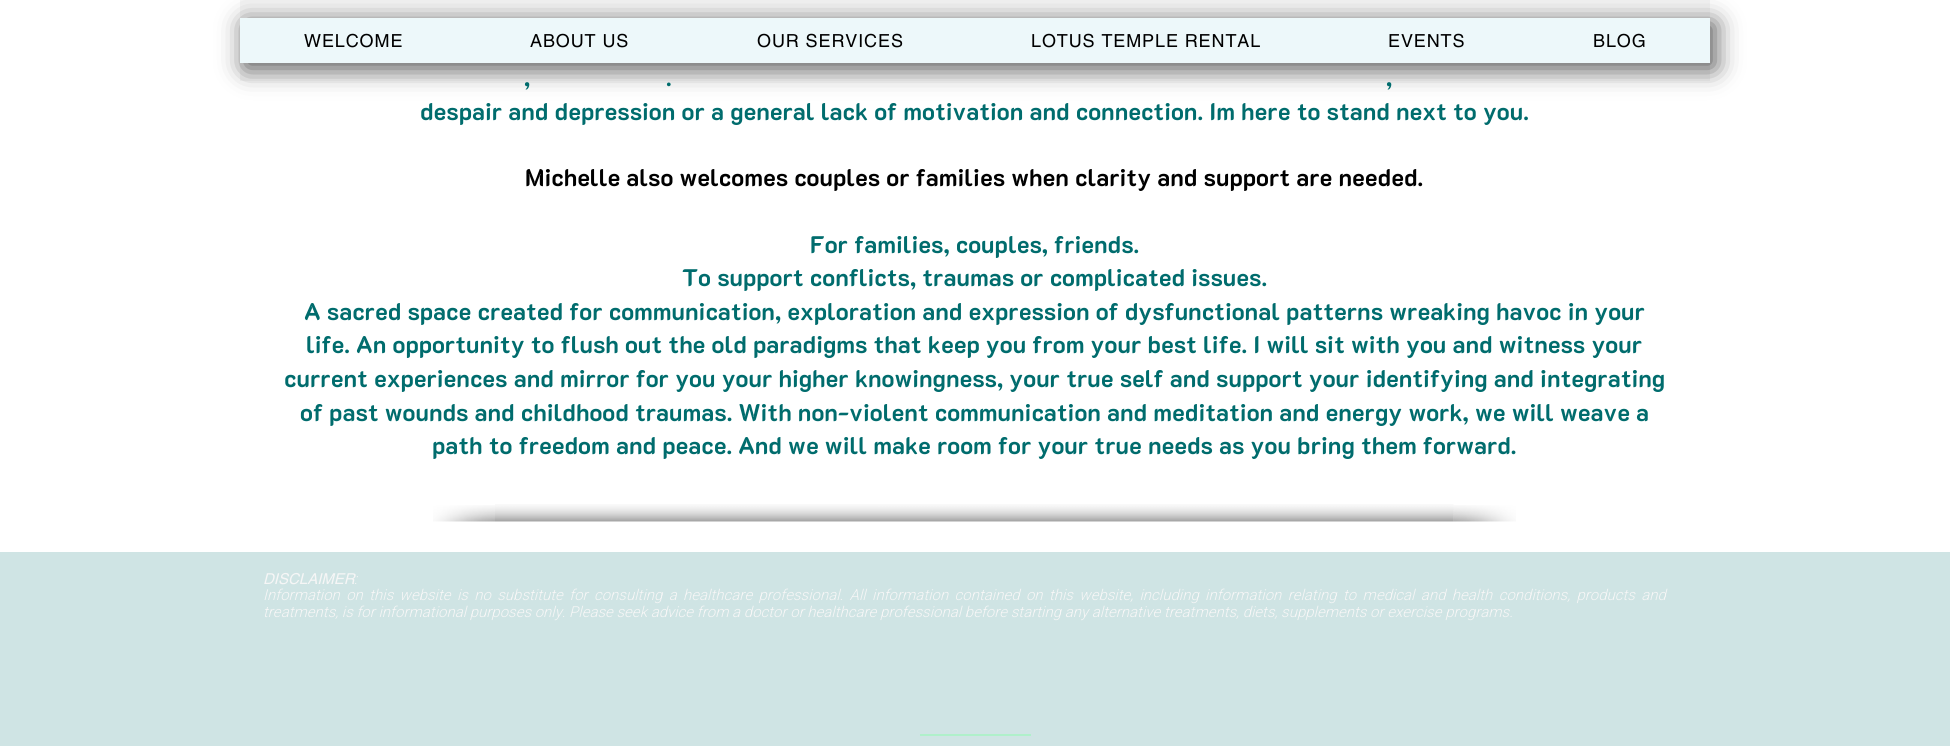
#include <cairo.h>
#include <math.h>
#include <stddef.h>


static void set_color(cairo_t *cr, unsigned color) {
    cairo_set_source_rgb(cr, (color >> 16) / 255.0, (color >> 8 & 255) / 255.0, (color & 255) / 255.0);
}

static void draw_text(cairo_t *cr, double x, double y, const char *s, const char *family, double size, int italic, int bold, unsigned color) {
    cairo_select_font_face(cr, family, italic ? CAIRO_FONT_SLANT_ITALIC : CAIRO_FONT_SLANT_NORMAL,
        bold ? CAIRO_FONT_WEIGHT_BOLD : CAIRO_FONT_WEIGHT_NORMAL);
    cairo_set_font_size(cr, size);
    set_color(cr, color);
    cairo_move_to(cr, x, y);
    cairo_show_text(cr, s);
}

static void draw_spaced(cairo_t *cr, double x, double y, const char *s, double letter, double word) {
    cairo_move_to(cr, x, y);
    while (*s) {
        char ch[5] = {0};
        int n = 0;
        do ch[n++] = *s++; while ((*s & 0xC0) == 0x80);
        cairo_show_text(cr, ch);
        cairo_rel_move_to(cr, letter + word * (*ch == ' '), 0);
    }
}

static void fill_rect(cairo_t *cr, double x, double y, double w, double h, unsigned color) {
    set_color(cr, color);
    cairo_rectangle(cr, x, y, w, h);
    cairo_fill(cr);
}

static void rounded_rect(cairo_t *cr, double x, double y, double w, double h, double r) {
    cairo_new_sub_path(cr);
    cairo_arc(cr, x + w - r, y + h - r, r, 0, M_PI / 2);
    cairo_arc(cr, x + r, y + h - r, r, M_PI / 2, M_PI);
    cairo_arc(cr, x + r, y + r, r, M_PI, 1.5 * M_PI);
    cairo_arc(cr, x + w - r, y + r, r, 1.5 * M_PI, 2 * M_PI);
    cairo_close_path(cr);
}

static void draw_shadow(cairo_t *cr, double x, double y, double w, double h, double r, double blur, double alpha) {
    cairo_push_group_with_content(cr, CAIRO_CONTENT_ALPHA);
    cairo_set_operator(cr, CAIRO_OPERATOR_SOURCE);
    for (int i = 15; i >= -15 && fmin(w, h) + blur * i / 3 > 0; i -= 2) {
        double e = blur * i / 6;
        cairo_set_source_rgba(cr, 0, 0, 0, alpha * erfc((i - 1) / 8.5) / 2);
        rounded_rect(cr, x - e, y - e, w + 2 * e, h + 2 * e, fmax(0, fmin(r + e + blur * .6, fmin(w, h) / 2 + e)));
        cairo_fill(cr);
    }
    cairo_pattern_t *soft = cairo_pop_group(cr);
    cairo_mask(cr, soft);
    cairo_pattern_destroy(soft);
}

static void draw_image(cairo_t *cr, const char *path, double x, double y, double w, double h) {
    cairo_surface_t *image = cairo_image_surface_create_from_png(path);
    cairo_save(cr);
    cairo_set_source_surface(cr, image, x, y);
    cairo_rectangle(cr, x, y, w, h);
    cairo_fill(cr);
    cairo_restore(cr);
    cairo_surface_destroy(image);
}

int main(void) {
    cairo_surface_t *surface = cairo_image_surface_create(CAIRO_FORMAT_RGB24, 1950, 746);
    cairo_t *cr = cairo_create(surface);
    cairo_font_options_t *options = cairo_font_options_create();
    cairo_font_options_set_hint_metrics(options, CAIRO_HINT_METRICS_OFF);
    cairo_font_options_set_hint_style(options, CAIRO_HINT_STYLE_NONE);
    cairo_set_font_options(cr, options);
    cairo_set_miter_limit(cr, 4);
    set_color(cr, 0xFFFFFF);
    cairo_paint(cr);
    fill_rect(cr, 240, 0, 1470, 81, 0xF6F6F6);
    set_color(cr, 0x000000);
    draw_shadow(cr, 245, 23, 1470, 45, 0, 13, 0.68);
    fill_rect(cr, 240, 18, 1470, 45, 0xEDF8FA);
    cairo_select_font_face(cr, "helvetica", CAIRO_FONT_SLANT_NORMAL, CAIRO_FONT_WEIGHT_NORMAL);
    cairo_set_font_size(cr, 18);
    set_color(cr, 0x000000);
    draw_spaced(cr, 304, 47, "WELCOME", 0.9, 0);
    draw_spaced(cr, 530, 47, "ABOUT US", 0.9, 0);
    draw_spaced(cr, 757, 47, "OUR SERVICES", 0.9, 0);
    draw_spaced(cr, 1031, 47, "LOTUS TEMPLE RENTAL", 0.9, 0);
    draw_spaced(cr, 1388, 47, "EVENTS", 0.9, 0);
    draw_spaced(cr, 1593, 47, "BLOG", 0.9, 0);
    draw_text(cr, 524, 86, ",", "K2D", 24, 0, 1, 0x006C6D);
    draw_text(cr, 666, 86, ".", "K2D", 24, 0, 1, 0x006C6D);
    draw_text(cr, 1386, 86, ",", "K2D", 24, 0, 1, 0x006C6D);
    draw_text(cr, 420, 120, "despair and depression or a general lack of motivation and connection. Im here to stand next to you.", "K2D", 24, 0, 1, 0x006C6D);
    draw_text(cr, 525, 186, "Michelle also welcomes couples or families when clarity and support are needed.", "K2D", 24, 0, 1, 0x000000);
    draw_text(cr, 810, 253, "For families, couples, friends.", "K2D", 24, 0, 1, 0x006C6D);
    draw_text(cr, 682, 286, "To support conflicts, traumas or complicated issues.", "K2D", 24, 0, 1, 0x006C6D);
    draw_text(cr, 304, 320, "A sacred space created for communication, exploration and expression of dysfunctional patterns wreaking havoc in your", "K2D", 24, 0, 1, 0x006C6D);
    draw_text(cr, 306, 353, "life. An opportunity to flush out the old paradigms that keep you from your best life. I will sit with you and witness your", "K2D", 24, 0, 1, 0x006C6D);
    draw_text(cr, 284, 387, "current experiences and mirror for you your higher knowingness, your true self and support your identifying and integrating", "K2D", 24, 0, 1, 0x006C6D);
    draw_text(cr, 300, 421, "of past wounds and childhood traumas. With non-violent communication and meditation and energy work, we will weave a", "K2D", 24, 0, 1, 0x006C6D);
    draw_text(cr, 432, 454, "path to freedom and peace. And we will make room for your true needs as you bring them forward.", "K2D", 24, 0, 1, 0x006C6D);
    draw_image(cr, "assets/img1.png", 495, 504, 959, 18);
    draw_image(cr, "assets/img2.png", 433, 505, 62, 17);
    draw_image(cr, "assets/img3.png", 1453, 505, 63, 17);
    fill_rect(cr, 0, 552, 1950, 194, 0xCFE4E4);
    draw_text(cr, 263, 584, "DISCLAIMER", "helvetica", 15, 1, 0, 0xF6F6F6);
    draw_text(cr, 354, 584, ":", "Heebo Light", 15, 1, 0, 0xF6F6F6);
    draw_spaced(cr, 263, 600, "Information on this website is no substitute for consulting a healthcare professional. All information contained on this website, including information relating to medical and health conditions, products and", 0, 2.7);
    draw_text(cr, 263, 617, "treatments, is for informational purposes only. Please seek advice from a doctor or healthcare professional before starting any alternative treatments, diets, supplements or exercise programs.", "Heebo Light", 15, 1, 0, 0xF6F6F6);
    fill_rect(cr, 920, 734, 111, 2, 0xAFF0CA);
    cairo_surface_write_to_png(surface, "output.png");
    cairo_font_options_destroy(options);
    cairo_destroy(cr);
    cairo_surface_destroy(surface);
    return 0;
}
